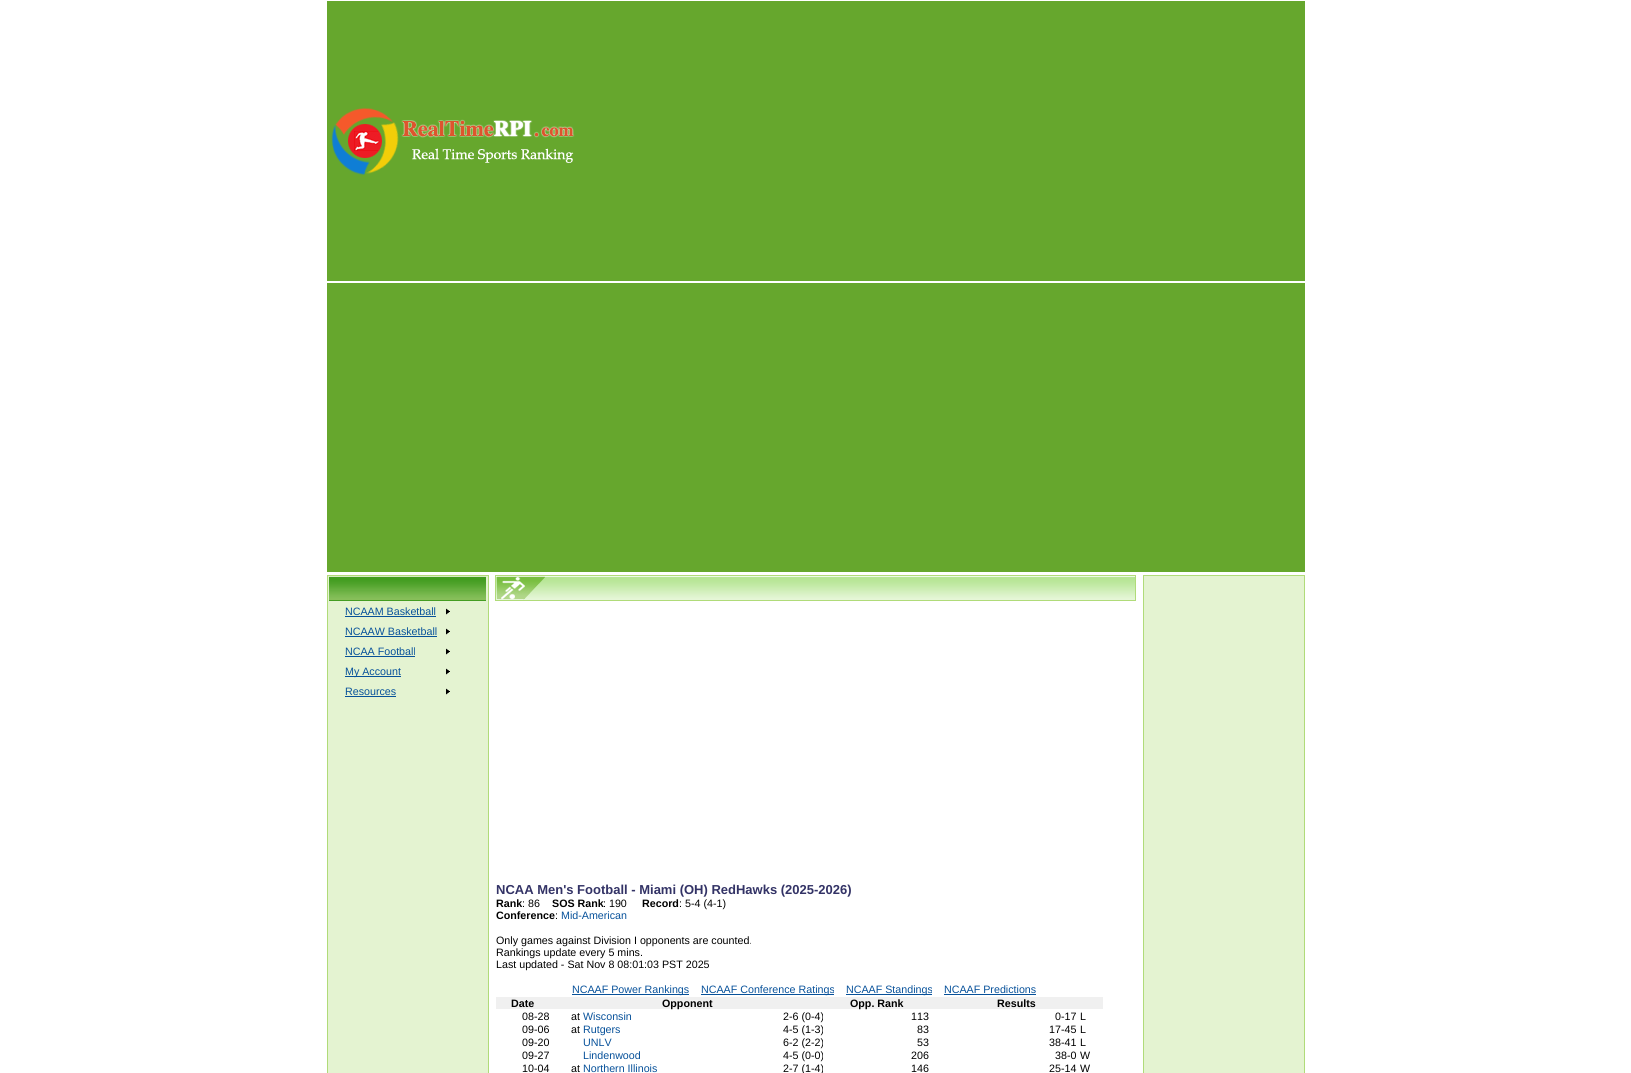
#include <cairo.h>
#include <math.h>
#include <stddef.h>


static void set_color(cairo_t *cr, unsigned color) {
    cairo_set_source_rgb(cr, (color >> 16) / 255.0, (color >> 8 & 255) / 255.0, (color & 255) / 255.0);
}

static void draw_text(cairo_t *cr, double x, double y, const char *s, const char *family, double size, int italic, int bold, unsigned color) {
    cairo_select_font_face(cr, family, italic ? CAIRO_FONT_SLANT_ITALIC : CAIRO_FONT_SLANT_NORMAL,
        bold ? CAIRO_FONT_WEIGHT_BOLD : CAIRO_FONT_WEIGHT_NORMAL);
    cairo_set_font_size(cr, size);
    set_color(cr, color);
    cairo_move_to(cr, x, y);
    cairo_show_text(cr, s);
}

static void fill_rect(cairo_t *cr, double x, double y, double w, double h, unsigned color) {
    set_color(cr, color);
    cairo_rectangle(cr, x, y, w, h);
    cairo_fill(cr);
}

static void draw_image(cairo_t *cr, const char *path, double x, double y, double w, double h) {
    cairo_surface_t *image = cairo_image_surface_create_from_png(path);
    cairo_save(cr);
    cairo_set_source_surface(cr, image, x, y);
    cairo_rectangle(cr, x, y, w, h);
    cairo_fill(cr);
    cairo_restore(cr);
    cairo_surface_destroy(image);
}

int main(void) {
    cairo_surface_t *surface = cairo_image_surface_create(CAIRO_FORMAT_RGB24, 1631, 1073);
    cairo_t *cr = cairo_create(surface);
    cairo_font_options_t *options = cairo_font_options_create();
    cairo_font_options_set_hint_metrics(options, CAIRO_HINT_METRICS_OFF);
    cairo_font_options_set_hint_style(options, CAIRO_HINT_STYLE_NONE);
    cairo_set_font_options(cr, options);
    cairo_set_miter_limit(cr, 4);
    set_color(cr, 0xFFFFFF);
    cairo_paint(cr);
    fill_rect(cr, 327, 1, 978, 280, 0x66A72D);
    draw_image(cr, "assets/img1.png", 331, 107, 244, 68);
    fill_rect(cr, 327, 283, 978, 289, 0x66A72D);
    set_color(cr, 0xE4F3D1);
    cairo_rectangle(cr, 327.5, 575.5, 161, 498);
    cairo_fill_preserve(cr);
    set_color(cr, 0xB0DB79);
    cairo_set_line_width(cr, 1);
    cairo_stroke(cr);
    draw_image(cr, "assets/img2.png", 329, 576, 157, 25);
    draw_text(cr, 345, 615, "NCAAM Basketball", "Liberation Sans", 10.7, 0, 0, 0x07519A);
    fill_rect(cr, 345, 616, 91, 1, 0x07519A);
    draw_image(cr, "assets/img3.png", 446, 608, 4, 7);
    draw_text(cr, 345, 635, "NCAAW Basketball", "Liberation Sans", 10.7, 0, 0, 0x07519A);
    fill_rect(cr, 345, 636, 92, 1, 0x07519A);
    draw_image(cr, "assets/img3.png", 446, 628, 4, 7);
    draw_text(cr, 345, 655, "NCAA Football", "Liberation Sans", 10.7, 0, 0, 0x07519A);
    fill_rect(cr, 345, 656, 70, 1, 0x07519A);
    draw_image(cr, "assets/img3.png", 446, 648, 4, 7);
    fill_rect(cr, 345, 676, 56, 1, 0x07519A);
    draw_text(cr, 345, 675, "My Account", "Liberation Sans", 10.7, 0, 0, 0x07519A);
    draw_image(cr, "assets/img3.png", 446, 668, 4, 7);
    draw_text(cr, 345, 695, "Resources", "Liberation Sans", 10.7, 0, 0, 0x07519A);
    fill_rect(cr, 345, 696, 51, 1, 0x07519A);
    draw_image(cr, "assets/img3.png", 446, 688, 4, 7);
    set_color(cr, 0xE4F3D1);
    cairo_rectangle(cr, 1143.5, 575.5, 161, 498);
    cairo_fill_preserve(cr);
    set_color(cr, 0xB0DB79);
    cairo_stroke(cr);
    cairo_rectangle(cr, 495.5, 575.5, 640, 25);
    cairo_stroke(cr);
    draw_image(cr, "assets/img4.png", 496, 576, 49, 24);
    draw_image(cr, "assets/img5.png", 545, 576, 585, 24);
    draw_image(cr, "assets/img6.png", 1130, 576, 5, 24);
    draw_text(cr, 496, 894, "NCAA Men's Football - Miami (OH) RedHawks (2025-2026)", "Liberation Sans", 13, 0, 1, 0x333366);
    draw_text(cr, 496, 907, "Rank", "Liberation Sans", 10.7, 0, 1, 0x000000);
    draw_text(cr, 522, 907, ": 86", "Liberation Sans", 10.7, 0, 0, 0x000000);
    draw_text(cr, 552, 907, "SOS Rank", "Liberation Sans", 10.7, 0, 1, 0x000000);
    draw_text(cr, 603, 907, ": 190", "Liberation Sans", 10.7, 0, 0, 0x000000);
    draw_text(cr, 642, 907, "Record", "Liberation Sans", 10.7, 0, 1, 0x000000);
    draw_text(cr, 679, 907, ": 5-4 (4-1)", "Liberation Sans", 10.7, 0, 0, 0x000000);
    draw_text(cr, 496, 919, "Conference", "Liberation Sans", 10.7, 0, 1, 0x000000);
    draw_text(cr, 555, 919, ":", "Liberation Sans", 10.7, 0, 0, 0x000000);
    draw_text(cr, 561, 919, "Mid-American", "Liberation Sans", 10.7, 0, 0, 0x07519A);
    draw_text(cr, 496, 944, "Only games against Division I opponents are counted.", "Liberation Sans", 10.7, 0, 0, 0x000000);
    draw_text(cr, 496, 956, "Rankings update every 5 mins.", "Liberation Sans", 10.7, 0, 0, 0x000000);
    draw_text(cr, 496, 968, "Last updated - Sat Nov 8 08:01:03 PST 2025", "Liberation Sans", 10.7, 0, 0, 0x000000);
    fill_rect(cr, 572, 994, 117, 1, 0x07519A);
    draw_text(cr, 572, 993, "NCAAF Power Rankings", "Liberation Sans", 10.7, 0, 0, 0x07519A);
    fill_rect(cr, 701, 994, 133, 1, 0x07519A);
    draw_text(cr, 701, 993, "NCAAF Conference Ratings", "Liberation Sans", 10.7, 0, 0, 0x07519A);
    fill_rect(cr, 846, 994, 86, 1, 0x07519A);
    draw_text(cr, 846, 993, "NCAAF Standings", "Liberation Sans", 10.7, 0, 0, 0x07519A);
    draw_text(cr, 944, 993, "NCAAF Predictions", "Liberation Sans", 10.7, 0, 0, 0x07519A);
    fill_rect(cr, 944, 994, 92, 1, 0x07519A);
    fill_rect(cr, 496, 997, 607, 12, 0xF0F0F0);
    draw_text(cr, 511, 1007, "Date", "Liberation Sans", 10.7, 0, 1, 0x000000);
    draw_text(cr, 662, 1007, "Opponent", "Liberation Sans", 10.7, 0, 1, 0x000000);
    draw_text(cr, 850, 1007, "Opp. Rank", "Liberation Sans", 10.7, 0, 1, 0x000000);
    draw_text(cr, 997, 1007, "Results", "Liberation Sans", 10.7, 0, 1, 0x000000);
    draw_text(cr, 522, 1020, "08-28", "Liberation Sans", 10.7, 0, 0, 0x000000);
    draw_text(cr, 571, 1020, "at", "Liberation Sans", 10.7, 0, 0, 0x000000);
    draw_text(cr, 583, 1020, "Wisconsin", "Liberation Sans", 10.7, 0, 0, 0x07519A);
    draw_text(cr, 783, 1020, "2-6 (0-4)", "Liberation Sans", 10.7, 0, 0, 0x000000);
    draw_text(cr, 911, 1020, "113", "Liberation Sans", 10.7, 0, 0, 0x000000);
    draw_text(cr, 1055, 1020, "0-17", "Liberation Sans", 10.7, 0, 0, 0x000000);
    draw_text(cr, 1080, 1020, "L", "Liberation Sans", 10.7, 0, 0, 0x000000);
    draw_text(cr, 522, 1033, "09-06", "Liberation Sans", 10.7, 0, 0, 0x000000);
    draw_text(cr, 571, 1033, "at", "Liberation Sans", 10.7, 0, 0, 0x000000);
    draw_text(cr, 583, 1033, "Rutgers", "Liberation Sans", 10.7, 0, 0, 0x07519A);
    draw_text(cr, 783, 1033, "4-5 (1-3)", "Liberation Sans", 10.7, 0, 0, 0x000000);
    draw_text(cr, 917, 1033, "83", "Liberation Sans", 10.7, 0, 0, 0x000000);
    draw_text(cr, 1049, 1033, "17-45", "Liberation Sans", 10.7, 0, 0, 0x000000);
    draw_text(cr, 1080, 1033, "L", "Liberation Sans", 10.7, 0, 0, 0x000000);
    draw_text(cr, 522, 1046, "09-20", "Liberation Sans", 10.7, 0, 0, 0x000000);
    draw_text(cr, 583, 1046, "UNLV", "Liberation Sans", 10.7, 0, 0, 0x07519A);
    draw_text(cr, 783, 1046, "6-2 (2-2)", "Liberation Sans", 10.7, 0, 0, 0x000000);
    draw_text(cr, 917, 1046, "53", "Liberation Sans", 10.7, 0, 0, 0x000000);
    draw_text(cr, 1049, 1046, "38-41", "Liberation Sans", 10.7, 0, 0, 0x000000);
    draw_text(cr, 1080, 1046, "L", "Liberation Sans", 10.7, 0, 0, 0x000000);
    draw_text(cr, 522, 1059, "09-27", "Liberation Sans", 10.7, 0, 0, 0x000000);
    draw_text(cr, 583, 1059, "Lindenwood", "Liberation Sans", 10.7, 0, 0, 0x07519A);
    draw_text(cr, 783, 1059, "4-5 (0-0)", "Liberation Sans", 10.7, 0, 0, 0x000000);
    draw_text(cr, 911, 1059, "206", "Liberation Sans", 10.7, 0, 0, 0x000000);
    draw_text(cr, 1055, 1059, "38-0", "Liberation Sans", 10.7, 0, 0, 0x000000);
    draw_text(cr, 1080, 1059, "W", "Liberation Sans", 10.7, 0, 0, 0x000000);
    draw_text(cr, 522, 1072, "10-04", "Liberation Sans", 10.7, 0, 0, 0x000000);
    draw_text(cr, 571, 1072, "at", "Liberation Sans", 10.7, 0, 0, 0x000000);
    draw_text(cr, 583, 1072, "Northern Illinois", "Liberation Sans", 10.7, 0, 0, 0x07519A);
    draw_text(cr, 783, 1072, "2-7 (1-4)", "Liberation Sans", 10.7, 0, 0, 0x000000);
    draw_text(cr, 911, 1072, "146", "Liberation Sans", 10.7, 0, 0, 0x000000);
    draw_text(cr, 1049, 1072, "25-14", "Liberation Sans", 10.7, 0, 0, 0x000000);
    draw_text(cr, 1080, 1072, "W", "Liberation Sans", 10.7, 0, 0, 0x000000);
    cairo_surface_write_to_png(surface, "output.png");
    cairo_font_options_destroy(options);
    cairo_destroy(cr);
    cairo_surface_destroy(surface);
    return 0;
}
